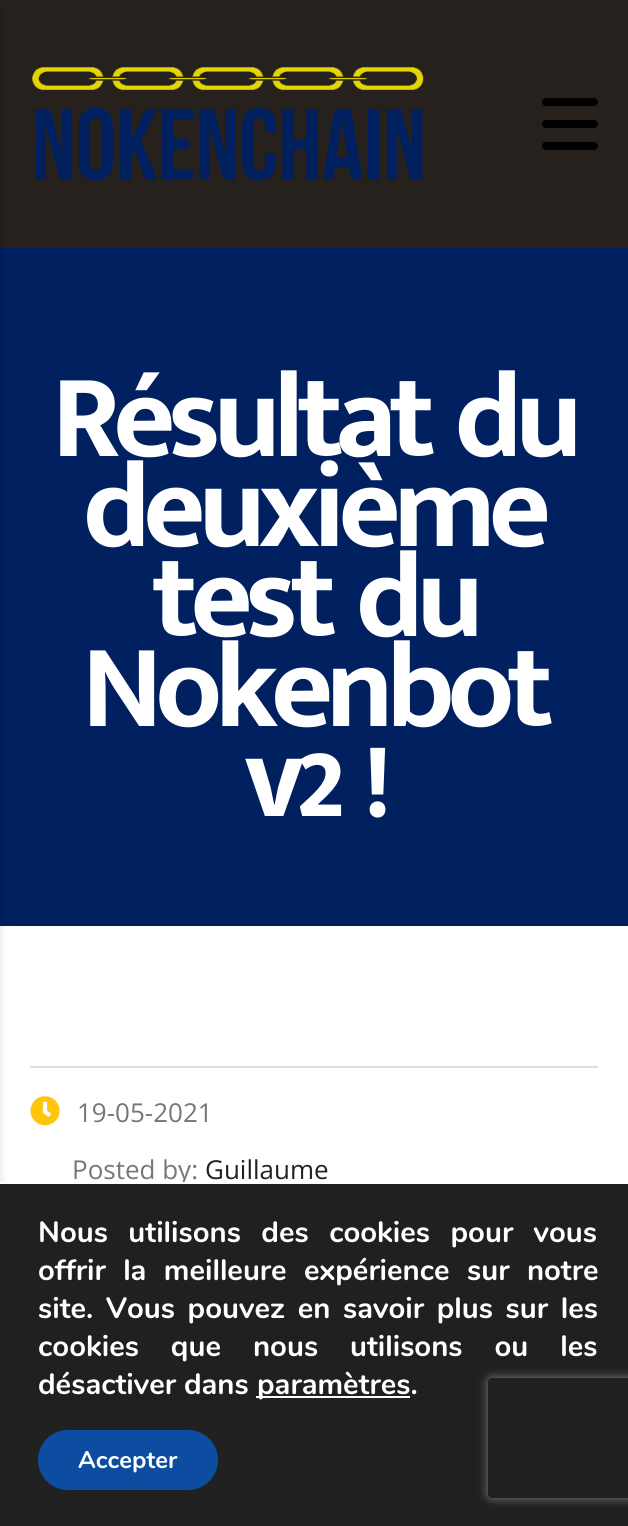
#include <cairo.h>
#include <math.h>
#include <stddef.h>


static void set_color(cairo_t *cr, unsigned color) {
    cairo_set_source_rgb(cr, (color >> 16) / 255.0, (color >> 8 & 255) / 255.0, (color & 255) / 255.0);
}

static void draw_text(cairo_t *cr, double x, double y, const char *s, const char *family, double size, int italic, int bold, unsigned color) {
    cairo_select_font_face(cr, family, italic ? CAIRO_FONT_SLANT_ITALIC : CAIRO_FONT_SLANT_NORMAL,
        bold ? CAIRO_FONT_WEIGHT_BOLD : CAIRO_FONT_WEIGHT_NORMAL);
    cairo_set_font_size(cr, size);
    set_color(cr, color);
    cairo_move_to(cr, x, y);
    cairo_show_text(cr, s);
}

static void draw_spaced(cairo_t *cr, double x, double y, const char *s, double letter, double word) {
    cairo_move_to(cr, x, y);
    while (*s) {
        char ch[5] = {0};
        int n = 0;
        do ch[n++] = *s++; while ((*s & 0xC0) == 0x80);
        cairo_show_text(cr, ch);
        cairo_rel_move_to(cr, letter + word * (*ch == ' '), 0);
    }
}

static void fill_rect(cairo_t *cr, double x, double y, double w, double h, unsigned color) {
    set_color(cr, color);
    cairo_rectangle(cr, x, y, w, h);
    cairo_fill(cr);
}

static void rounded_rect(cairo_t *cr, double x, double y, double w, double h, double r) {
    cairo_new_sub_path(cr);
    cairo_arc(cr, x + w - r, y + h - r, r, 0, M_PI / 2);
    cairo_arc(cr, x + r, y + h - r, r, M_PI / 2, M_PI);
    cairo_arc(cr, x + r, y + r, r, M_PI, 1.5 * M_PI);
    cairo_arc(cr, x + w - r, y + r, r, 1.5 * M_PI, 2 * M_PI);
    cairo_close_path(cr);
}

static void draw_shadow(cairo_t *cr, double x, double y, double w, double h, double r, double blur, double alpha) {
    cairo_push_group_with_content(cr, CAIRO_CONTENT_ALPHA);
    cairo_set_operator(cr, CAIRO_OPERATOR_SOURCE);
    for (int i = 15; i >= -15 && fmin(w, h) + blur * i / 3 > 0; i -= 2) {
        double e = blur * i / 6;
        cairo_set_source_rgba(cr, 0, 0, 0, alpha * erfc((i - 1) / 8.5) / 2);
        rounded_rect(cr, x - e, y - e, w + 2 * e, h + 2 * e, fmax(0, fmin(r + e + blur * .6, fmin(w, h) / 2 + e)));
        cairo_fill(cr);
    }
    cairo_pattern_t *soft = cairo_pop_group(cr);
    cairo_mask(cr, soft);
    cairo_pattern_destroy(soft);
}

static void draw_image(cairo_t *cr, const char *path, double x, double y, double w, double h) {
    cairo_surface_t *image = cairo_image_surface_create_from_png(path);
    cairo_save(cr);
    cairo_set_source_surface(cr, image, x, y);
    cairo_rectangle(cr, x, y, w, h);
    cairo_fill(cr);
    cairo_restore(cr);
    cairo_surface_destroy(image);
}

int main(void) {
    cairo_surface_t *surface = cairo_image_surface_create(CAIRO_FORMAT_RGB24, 628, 1526);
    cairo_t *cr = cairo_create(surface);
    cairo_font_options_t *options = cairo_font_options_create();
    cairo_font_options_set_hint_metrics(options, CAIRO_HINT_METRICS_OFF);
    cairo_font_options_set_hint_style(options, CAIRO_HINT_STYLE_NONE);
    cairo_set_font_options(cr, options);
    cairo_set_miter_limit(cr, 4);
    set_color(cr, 0xFFFFFF);
    cairo_paint(cr);
    fill_rect(cr, 0, 0, 628, 248, 0x26211D);
    draw_image(cr, "assets/img1.png", 32, 67, 392, 114);
    set_color(cr, 0x000000);
    rounded_rect(cr, 542, 98, 56, 8, 4);
    cairo_fill(cr);
    rounded_rect(cr, 542, 120, 56, 8, 4);
    cairo_fill(cr);
    rounded_rect(cr, 542, 142, 56, 8, 4);
    cairo_fill(cr);
    fill_rect(cr, 0, 248, 628, 678, 0x002060);
    set_color(cr, 0x000000);
    draw_shadow(cr, -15, 6, 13, 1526, 0, 5, 0.2);
    cairo_select_font_face(cr, "Mukta Malar", CAIRO_FONT_SLANT_NORMAL, CAIRO_FONT_WEIGHT_BOLD);
    cairo_set_font_size(cr, 120);
    set_color(cr, 0xFFFFFF);
    draw_spaced(cr, 52, 456, "Résultat du", -7.25, 0);
    draw_spaced(cr, 83, 546, "deuxième", -7.25, 0);
    draw_spaced(cr, 152, 636, "test du", -7.25, 0);
    draw_spaced(cr, 82, 726, "Nokenbot", -7.25, 0);
    draw_spaced(cr, 244, 816, "v2 !", -7.25, 0);
    fill_rect(cr, 30, 1066, 568, 2, 0xDDDDDD);
    draw_image(cr, "assets/img2.png", 30, 1096, 30, 30);
    draw_text(cr, 77, 1122, "19-05-2021", "Open Sans", 26, 0, 0, 0x777777);
    draw_text(cr, 72, 1179, "Posted by:", "Open Sans", 26, 0, 0, 0x777777);
    draw_text(cr, 205, 1179, "Guillaume", "Open Sans", 26, 0, 0, 0x222222);
    fill_rect(cr, 0, 1184, 628, 342, 0x202020);
    fill_rect(cr, 0, 1182, 185, 2, 0xFFFFFF);
    cairo_select_font_face(cr, "Nunito", CAIRO_FONT_SLANT_NORMAL, CAIRO_FONT_WEIGHT_BOLD);
    cairo_set_font_size(cr, 29.3);
    draw_spaced(cr, 38, 1242, "Nous utilisons des cookies pour vous", 0, 12.5);
    draw_spaced(cr, 38, 1280, "offrir la meilleure expérience sur notre", 0, 9.5);
    draw_spaced(cr, 38, 1318, "site. Vous pouvez en savoir plus sur les", 0, 4.75);
    draw_spaced(cr, 38, 1356, "cookies que nous utilisons ou les", 0, 24);
    draw_text(cr, 38, 1394, "désactiver dans", "Nunito", 29.3, 0, 1, 0xFFFFFF);
    fill_rect(cr, 256, 1396, 154, 2, 0xFFFFFF);
    draw_text(cr, 257, 1394, "paramètres.", "Nunito", 29.3, 0, 1, 0xFFFFFF);
    set_color(cr, 0x0C4DA2);
    rounded_rect(cr, 38, 1430, 180, 60, 30);
    cairo_fill(cr);
    draw_text(cr, 78, 1468, "Accepter", "Nunito", 24, 0, 1, 0xFFFFFF);
    cairo_save(cr);
    cairo_set_fill_rule(cr, CAIRO_FILL_RULE_EVEN_ODD);
    cairo_new_path(cr);
    cairo_move_to(cr, 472, 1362);
    cairo_line_to(cr, 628, 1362);
    cairo_line_to(cr, 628, 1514);
    cairo_line_to(cr, 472, 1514);
    cairo_close_path(cr);
    cairo_move_to(cr, 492, 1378);
    cairo_line_to(cr, 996, 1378);
    cairo_curve_to(cr, 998, 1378, 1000, 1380, 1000, 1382);
    cairo_line_to(cr, 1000, 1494);
    cairo_curve_to(cr, 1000, 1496, 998, 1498, 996, 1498);
    cairo_line_to(cr, 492, 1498);
    cairo_curve_to(cr, 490, 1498, 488, 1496, 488, 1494);
    cairo_line_to(cr, 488, 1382);
    cairo_curve_to(cr, 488, 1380, 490, 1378, 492, 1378);
    cairo_close_path(cr);
    cairo_clip(cr);
    set_color(cr, 0x808080);
    draw_shadow(cr, 488, 1378, 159, 120, 4, 5, 1);
    cairo_restore(cr);
    cairo_surface_write_to_png(surface, "output.png");
    cairo_font_options_destroy(options);
    cairo_destroy(cr);
    cairo_surface_destroy(surface);
    return 0;
}
